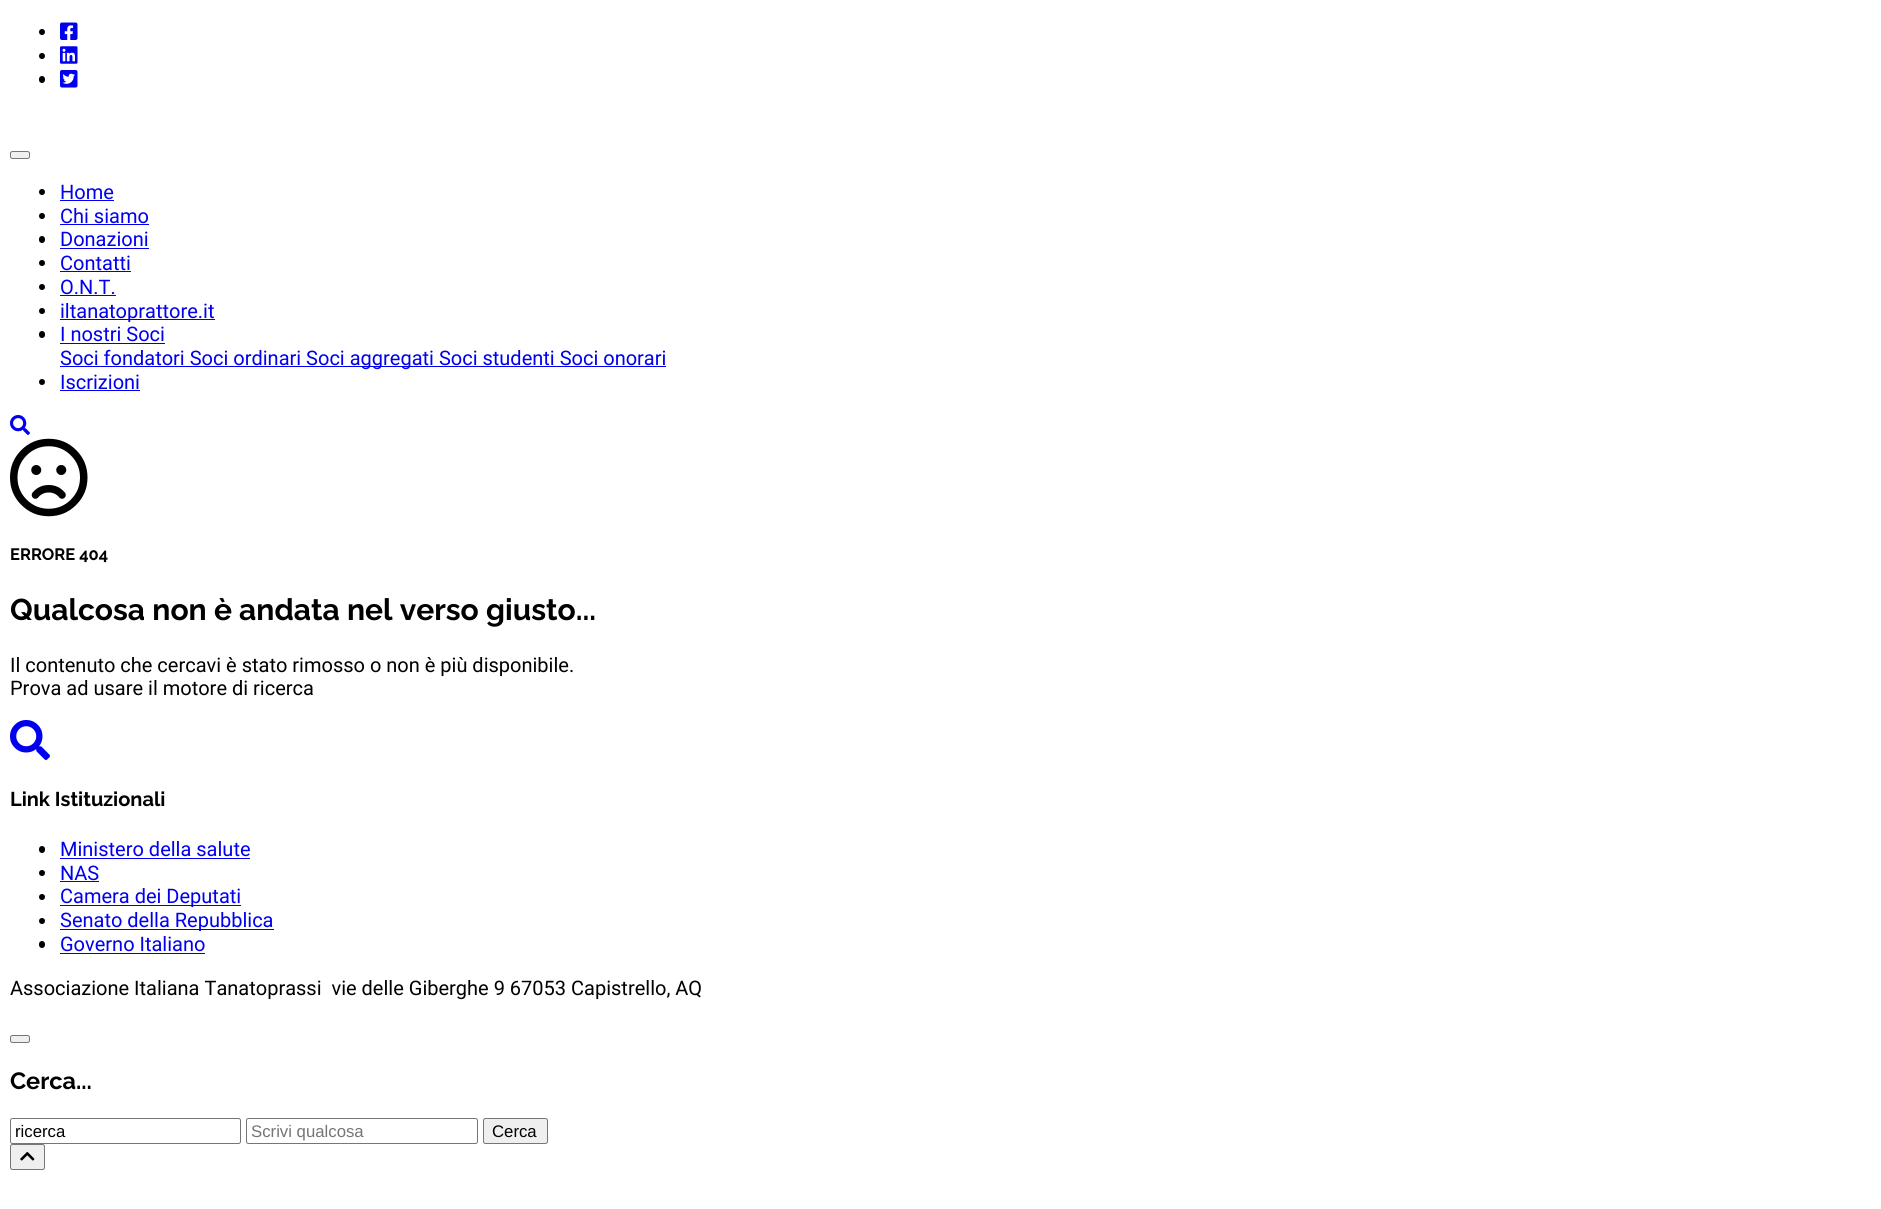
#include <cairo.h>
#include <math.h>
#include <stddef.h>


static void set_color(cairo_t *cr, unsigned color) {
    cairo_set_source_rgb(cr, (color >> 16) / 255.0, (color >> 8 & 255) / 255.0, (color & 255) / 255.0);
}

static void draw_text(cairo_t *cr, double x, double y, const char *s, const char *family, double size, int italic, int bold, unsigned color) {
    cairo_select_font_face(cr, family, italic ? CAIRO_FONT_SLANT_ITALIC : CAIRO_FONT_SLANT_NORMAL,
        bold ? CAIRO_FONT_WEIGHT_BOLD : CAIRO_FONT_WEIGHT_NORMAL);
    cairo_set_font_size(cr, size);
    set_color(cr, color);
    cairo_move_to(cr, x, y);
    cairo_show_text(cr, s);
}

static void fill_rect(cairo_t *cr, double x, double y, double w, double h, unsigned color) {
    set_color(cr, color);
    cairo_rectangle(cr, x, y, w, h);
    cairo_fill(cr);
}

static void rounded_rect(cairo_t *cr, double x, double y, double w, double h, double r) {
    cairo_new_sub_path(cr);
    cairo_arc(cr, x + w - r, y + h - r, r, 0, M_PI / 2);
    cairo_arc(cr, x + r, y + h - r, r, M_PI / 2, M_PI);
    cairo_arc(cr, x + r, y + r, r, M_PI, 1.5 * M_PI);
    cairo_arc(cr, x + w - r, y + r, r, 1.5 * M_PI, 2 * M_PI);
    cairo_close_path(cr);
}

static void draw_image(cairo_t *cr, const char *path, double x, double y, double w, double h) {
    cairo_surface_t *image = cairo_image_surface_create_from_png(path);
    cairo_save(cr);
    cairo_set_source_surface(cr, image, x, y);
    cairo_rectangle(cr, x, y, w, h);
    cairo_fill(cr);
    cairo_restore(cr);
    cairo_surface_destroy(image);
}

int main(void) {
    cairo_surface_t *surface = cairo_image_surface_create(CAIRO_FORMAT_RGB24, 1881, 1209);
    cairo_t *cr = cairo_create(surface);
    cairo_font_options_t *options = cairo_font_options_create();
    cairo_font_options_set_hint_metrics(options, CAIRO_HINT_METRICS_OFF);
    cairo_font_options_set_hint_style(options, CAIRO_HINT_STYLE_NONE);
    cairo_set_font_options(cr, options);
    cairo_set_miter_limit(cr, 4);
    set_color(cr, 0xFFFFFF);
    cairo_paint(cr);
    set_color(cr, 0x000000);
    cairo_arc(cr, 42, 32, 3, 0, 2 * M_PI);
    cairo_fill(cr);
    draw_image(cr, "assets/img1.png", 60, 22, 18, 18);
    cairo_arc(cr, 42, 56, 3, 0, 2 * M_PI);
    cairo_fill(cr);
    draw_image(cr, "assets/img2.png", 60, 46, 18, 18);
    rounded_rect(cr, 39, 76, 6, 7, 3);
    cairo_fill(cr);
    draw_image(cr, "assets/img3.png", 60, 70, 18, 18);
    set_color(cr, 0xEFEFEF);
    rounded_rect(cr, 10.5, 151.5, 19, 7, 2);
    cairo_fill_preserve(cr);
    set_color(cr, 0x767676);
    cairo_set_line_width(cr, 1);
    cairo_stroke(cr);
    set_color(cr, 0x000000);
    cairo_arc(cr, 42, 192, 3, 0, 2 * M_PI);
    cairo_fill(cr);
    draw_text(cr, 60, 199, "Home", "Roboto", 20, 0, 0, 0x0000EE);
    fill_rect(cr, 60, 200, 54, 1, 0x0000EE);
    set_color(cr, 0x000000);
    cairo_new_path(cr);
    cairo_arc(cr, 42, 216, 3, 0, 2 * M_PI);
    cairo_fill(cr);
    draw_text(cr, 60, 223, "Chi siamo", "Roboto", 20, 0, 0, 0x0000EE);
    fill_rect(cr, 60, 224, 89, 1, 0x0000EE);
    set_color(cr, 0x000000);
    rounded_rect(cr, 39, 236, 6, 7, 3);
    cairo_fill(cr);
    draw_text(cr, 60, 246, "Donazioni", "Roboto", 20, 0, 0, 0x0000EE);
    fill_rect(cr, 60, 248, 89, 1, 0x0000EE);
    set_color(cr, 0x000000);
    cairo_new_path(cr);
    cairo_arc(cr, 42, 263, 3, 0, 2 * M_PI);
    cairo_fill(cr);
    draw_text(cr, 60, 270, "Contatti", "Roboto", 20, 0, 0, 0x0000EE);
    fill_rect(cr, 60, 271, 71, 1, 0x0000EE);
    set_color(cr, 0x000000);
    cairo_new_path(cr);
    cairo_arc(cr, 42, 287, 3, 0, 2 * M_PI);
    cairo_fill(cr);
    draw_text(cr, 60, 294, "O.N.T.", "Roboto", 20, 0, 0, 0x0000EE);
    fill_rect(cr, 60, 295, 56, 1, 0x0000EE);
    set_color(cr, 0x000000);
    cairo_new_path(cr);
    cairo_arc(cr, 42, 311, 3, 0, 2 * M_PI);
    cairo_fill(cr);
    fill_rect(cr, 60, 319, 155, 1, 0x0000EE);
    draw_text(cr, 60, 318, "iltanatoprattore.it", "Roboto", 20, 0, 0, 0x0000EE);
    set_color(cr, 0x000000);
    rounded_rect(cr, 39, 331, 6, 7, 3);
    cairo_fill(cr);
    draw_text(cr, 60, 341, "I nostri Soci", "Roboto", 20, 0, 0, 0x0000EE);
    fill_rect(cr, 60, 343, 105, 1, 0x0000EE);
    fill_rect(cr, 60, 366, 606, 1, 0x0000EE);
    draw_text(cr, 60, 365, "Soci fondatori Soci ordinari Soci aggregati Soci studenti Soci onorari", "Roboto", 20, 0, 0, 0x0000EE);
    set_color(cr, 0x000000);
    cairo_new_path(cr);
    cairo_arc(cr, 42, 382, 3, 0, 2 * M_PI);
    cairo_fill(cr);
    draw_text(cr, 60, 389, "Iscrizioni", "Roboto", 20, 0, 0, 0x0000EE);
    fill_rect(cr, 60, 390, 80, 1, 0x0000EE);
    draw_image(cr, "assets/img4.png", 10, 415, 20, 20);
    draw_image(cr, "assets/img5.png", 10, 438, 78, 79);
    draw_text(cr, 10, 560, "ERRORE 404", "Raleway", 16.5, 0, 1, 0x000000);
    draw_text(cr, 10, 620, "Qualcosa non è andata nel verso giusto...", "Raleway", 30, 0, 1, 0x000000);
    draw_text(cr, 10, 672, "Il contenuto che cercavi è stato rimosso o non è più disponibile.", "Roboto", 20, 0, 0, 0x000000);
    draw_text(cr, 10, 695, "Prova ad usare il motore di ricerca", "Roboto", 20, 0, 0, 0x000000);
    draw_image(cr, "assets/img6.png", 10, 720, 40, 40);
    draw_text(cr, 10, 806, "Link Istituzionali", "Raleway", 20, 0, 1, 0x000000);
    rounded_rect(cr, 39, 846, 6, 7, 3);
    cairo_fill(cr);
    draw_text(cr, 60, 856, "Ministero della salute", "Roboto", 20, 0, 0, 0x0000EE);
    fill_rect(cr, 60, 858, 190, 1, 0x0000EE);
    set_color(cr, 0x000000);
    cairo_new_path(cr);
    cairo_arc(cr, 42, 873, 3, 0, 2 * M_PI);
    cairo_fill(cr);
    draw_text(cr, 60, 880, "NAS", "Roboto", 20, 0, 0, 0x0000EE);
    fill_rect(cr, 60, 881, 39, 1, 0x0000EE);
    set_color(cr, 0x000000);
    cairo_new_path(cr);
    cairo_arc(cr, 42, 897, 3, 0, 2 * M_PI);
    cairo_fill(cr);
    fill_rect(cr, 60, 905, 181, 1, 0x0000EE);
    draw_text(cr, 60, 903, "Camera dei Deputati", "Roboto", 20, 0, 0, 0x0000EE);
    set_color(cr, 0x000000);
    cairo_new_path(cr);
    cairo_arc(cr, 42, 921, 3, 0, 2 * M_PI);
    cairo_fill(cr);
    fill_rect(cr, 60, 929, 214, 1, 0x0000EE);
    draw_text(cr, 60, 927, "Senato della Repubblica", "Roboto", 20, 0, 0, 0x0000EE);
    set_color(cr, 0x000000);
    rounded_rect(cr, 39, 941, 6, 7, 3);
    cairo_fill(cr);
    draw_text(cr, 60, 951, "Governo Italiano", "Roboto", 20, 0, 0, 0x0000EE);
    fill_rect(cr, 60, 953, 145, 1, 0x0000EE);
    draw_text(cr, 10, 995, "Associazione Italiana Tanatoprassi  vie delle Giberghe 9 67053 Capistrello, AQ", "Roboto", 20, 0, 0, 0x000000);
    set_color(cr, 0xEFEFEF);
    rounded_rect(cr, 10.5, 1035.5, 19, 7, 2);
    cairo_fill_preserve(cr);
    set_color(cr, 0x767676);
    cairo_stroke(cr);
    draw_text(cr, 10, 1089, "Cerca...", "Raleway", 23.5, 0, 1, 0x000000);
    rounded_rect(cr, 10.5, 1118.5, 230, 25, 2);
    set_color(cr, 0x767676);
    cairo_stroke(cr);
    draw_text(cr, 15, 1137, "ricerca", "Liberation Sans", 16.75, 0, 0, 0x000000);
    rounded_rect(cr, 246.5, 1118.5, 231, 25, 2);
    set_color(cr, 0x767676);
    cairo_stroke(cr);
    draw_text(cr, 251, 1137, "Scrivi qualcosa", "Liberation Sans", 16.75, 0, 0, 0x757575);
    set_color(cr, 0xEFEFEF);
    rounded_rect(cr, 483.5, 1118.5, 64, 25, 2);
    cairo_fill_preserve(cr);
    set_color(cr, 0x767676);
    cairo_stroke(cr);
    draw_text(cr, 492, 1137, "Cerca", "Liberation Sans", 16.75, 0, 0, 0x000000);
    set_color(cr, 0xEFEFEF);
    rounded_rect(cr, 10.5, 1144.5, 34, 25, 2);
    cairo_fill_preserve(cr);
    set_color(cr, 0x767676);
    cairo_stroke(cr);
    draw_image(cr, "assets/img7.png", 20, 1152, 15, 9);
    cairo_surface_write_to_png(surface, "output.png");
    cairo_font_options_destroy(options);
    cairo_destroy(cr);
    cairo_surface_destroy(surface);
    return 0;
}
